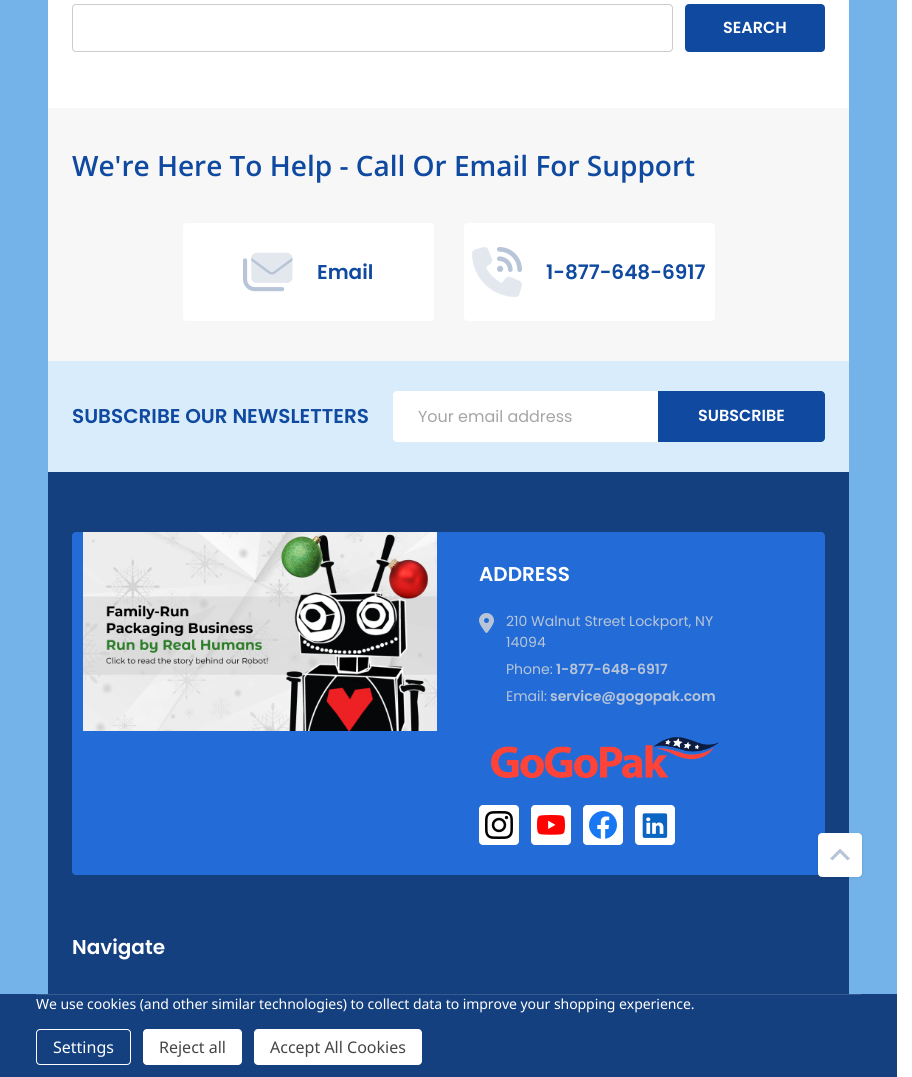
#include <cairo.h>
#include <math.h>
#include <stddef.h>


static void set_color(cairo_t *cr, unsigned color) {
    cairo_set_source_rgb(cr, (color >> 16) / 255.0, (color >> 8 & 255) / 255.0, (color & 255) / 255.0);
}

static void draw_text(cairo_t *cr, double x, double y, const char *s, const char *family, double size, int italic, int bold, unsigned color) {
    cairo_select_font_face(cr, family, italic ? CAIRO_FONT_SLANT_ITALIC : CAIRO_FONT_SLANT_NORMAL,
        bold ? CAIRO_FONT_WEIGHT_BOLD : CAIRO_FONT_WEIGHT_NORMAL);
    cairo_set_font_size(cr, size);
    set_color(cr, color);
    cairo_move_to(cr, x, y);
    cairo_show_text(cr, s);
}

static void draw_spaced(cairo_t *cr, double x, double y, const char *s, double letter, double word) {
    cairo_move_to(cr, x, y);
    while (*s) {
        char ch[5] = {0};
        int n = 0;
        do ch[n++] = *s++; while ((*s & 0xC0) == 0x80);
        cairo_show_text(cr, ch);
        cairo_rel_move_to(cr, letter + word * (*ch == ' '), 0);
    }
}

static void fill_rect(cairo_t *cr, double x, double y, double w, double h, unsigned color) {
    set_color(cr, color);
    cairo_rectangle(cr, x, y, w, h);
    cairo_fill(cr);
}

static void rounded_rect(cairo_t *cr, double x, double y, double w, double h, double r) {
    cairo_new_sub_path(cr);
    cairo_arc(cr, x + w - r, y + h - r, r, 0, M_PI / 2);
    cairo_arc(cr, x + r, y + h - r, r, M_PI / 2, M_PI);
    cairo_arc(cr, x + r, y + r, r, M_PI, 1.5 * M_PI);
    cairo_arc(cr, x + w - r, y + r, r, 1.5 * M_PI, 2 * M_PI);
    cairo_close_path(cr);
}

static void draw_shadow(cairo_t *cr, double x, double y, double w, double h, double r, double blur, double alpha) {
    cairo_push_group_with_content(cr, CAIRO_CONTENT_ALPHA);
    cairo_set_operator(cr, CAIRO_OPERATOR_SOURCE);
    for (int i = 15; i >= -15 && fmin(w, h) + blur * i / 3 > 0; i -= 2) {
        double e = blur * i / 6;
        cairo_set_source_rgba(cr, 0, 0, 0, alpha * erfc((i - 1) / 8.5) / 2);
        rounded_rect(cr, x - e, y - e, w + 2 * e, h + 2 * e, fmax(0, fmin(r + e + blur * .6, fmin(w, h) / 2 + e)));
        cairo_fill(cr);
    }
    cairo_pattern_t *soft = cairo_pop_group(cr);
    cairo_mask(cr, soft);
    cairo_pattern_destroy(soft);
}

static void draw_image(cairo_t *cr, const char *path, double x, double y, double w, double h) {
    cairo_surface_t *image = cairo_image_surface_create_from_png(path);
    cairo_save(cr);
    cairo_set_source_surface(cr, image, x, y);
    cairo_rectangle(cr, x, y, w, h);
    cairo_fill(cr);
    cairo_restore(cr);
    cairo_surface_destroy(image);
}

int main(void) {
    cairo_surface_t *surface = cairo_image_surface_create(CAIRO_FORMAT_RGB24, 912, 1077);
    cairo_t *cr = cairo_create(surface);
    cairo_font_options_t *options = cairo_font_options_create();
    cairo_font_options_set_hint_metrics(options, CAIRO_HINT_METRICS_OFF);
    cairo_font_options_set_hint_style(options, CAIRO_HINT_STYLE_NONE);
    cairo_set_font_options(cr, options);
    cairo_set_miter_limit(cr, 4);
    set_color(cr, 0xFFFFFF);
    cairo_paint(cr);
    fill_rect(cr, 849, 0, 48, 994, 0x74B3EA);
    fill_rect(cr, 0, 0, 48, 994, 0x74B3EA);
    rounded_rect(cr, 72.5, 4.5, 600, 47, 3.5);
    set_color(cr, 0xCCCCCC);
    cairo_set_line_width(cr, 1);
    cairo_stroke(cr);
    set_color(cr, 0x0F49A0);
    rounded_rect(cr, 686, 5, 138, 46, 3);
    cairo_fill_preserve(cr);
    cairo_set_line_width(cr, 2);
    cairo_stroke(cr);
    draw_text(cr, 723, 33, "SEARCH", "Poppins SemiBold", 16, 0, 0, 0xFFFFFF);
    fill_rect(cr, 48, 472, 801, 522, 0x15407F);
    fill_rect(cr, 48, 108, 801, 253, 0xF7F7F7);
    draw_text(cr, 72, 176, "We're Here To Help - Call Or Email For Support", "Open Sans SemiBold", 28, 0, 0, 0x0F49A0);
    set_color(cr, 0xFFFFFF);
    rounded_rect(cr, 183, 223, 251, 98, 4);
    cairo_fill(cr);
    draw_image(cr, "assets/img1.png", 243, 252, 50, 40);
    draw_text(cr, 317, 279, "Email", "Poppins SemiBold", 20, 0, 0, 0x0F49A0);
    set_color(cr, 0xFFFFFF);
    rounded_rect(cr, 464, 223, 251, 98, 4);
    cairo_fill(cr);
    draw_image(cr, "assets/img2.png", 472, 247, 50, 50);
    draw_text(cr, 546, 279, "1-877-648-6917", "Poppins SemiBold", 20, 0, 0, 0x0F49A0);
    fill_rect(cr, 48, 361, 801, 111, 0xD8ECFB);
    draw_text(cr, 72, 423, "SUBSCRIBE OUR NEWSLETTERS", "Poppins SemiBold", 20, 0, 0, 0x0F49A0);
    set_color(cr, 0xFFFFFF);
    cairo_new_path(cr);
    cairo_move_to(cr, 397, 391);
    cairo_line_to(cr, 658, 391);
    cairo_line_to(cr, 658, 442);
    cairo_line_to(cr, 397, 442);
    cairo_curve_to(cr, 395, 442, 393, 440, 393, 438);
    cairo_line_to(cr, 393, 395);
    cairo_curve_to(cr, 393, 393, 395, 391, 397, 391);
    cairo_close_path(cr);
    cairo_fill(cr);
    draw_text(cr, 418, 422, "Your email address", "Poppins", 16, 0, 0, 0xA5A5A5);
    set_color(cr, 0x0F49A0);
    cairo_new_path(cr);
    cairo_move_to(cr, 658, 391);
    cairo_line_to(cr, 821, 391);
    cairo_curve_to(cr, 823, 391, 825, 393, 825, 395);
    cairo_line_to(cr, 825, 438);
    cairo_curve_to(cr, 825, 440, 823, 442, 821, 442);
    cairo_line_to(cr, 658, 442);
    cairo_close_path(cr);
    cairo_fill(cr);
    draw_text(cr, 698, 421, "SUBSCRIBE", "Poppins SemiBold", 16, 0, 0, 0xFFFFFF);
    set_color(cr, 0x236CD7);
    rounded_rect(cr, 72, 532, 753, 343, 4);
    cairo_fill(cr);
    draw_image(cr, "assets/img3.png", 83, 532, 354, 199);
    draw_text(cr, 479, 581, "ADDRESS", "Poppins SemiBold", 20, 0, 0, 0xFFFFFF);
    draw_image(cr, "assets/img4.png", 479, 613, 15, 20);
    draw_text(cr, 506, 626, "210 Walnut Street Lockport, NY", "Poppins", 14, 0, 0, 0xB8C5D8);
    draw_text(cr, 506, 647, "14094", "Poppins", 14, 0, 0, 0xB8C5D8);
    draw_text(cr, 506, 674, "Phone:", "Poppins", 14, 0, 0, 0xB8C5D8);
    draw_text(cr, 556, 674, "1-877-648-6917", "Poppins SemiBold", 14, 0, 0, 0xB8C5D8);
    draw_text(cr, 506, 701, "Email:", "Poppins", 14, 0, 0, 0xB8C5D8);
    draw_text(cr, 550, 701, "service@gogopak.com", "Poppins SemiBold", 14, 0, 0, 0xB8C5D8);
    draw_image(cr, "assets/img5.png", 490, 737, 229, 42);
    set_color(cr, 0xFFFFFF);
    rounded_rect(cr, 479, 805, 40, 40, 4);
    cairo_fill(cr);
    draw_image(cr, "assets/img6.png", 485, 811, 28, 28);
    rounded_rect(cr, 531, 805, 40, 40, 4);
    cairo_fill(cr);
    draw_image(cr, "assets/img7.png", 537, 815, 28, 20);
    rounded_rect(cr, 583, 805, 40, 40, 4);
    cairo_fill(cr);
    draw_image(cr, "assets/img8.png", 589, 811, 28, 28);
    rounded_rect(cr, 635, 805, 40, 40, 4);
    cairo_fill(cr);
    draw_image(cr, "assets/img9.png", 642, 813, 26, 25);
    draw_text(cr, 72, 954, "Navigate", "Poppins SemiBold", 20, 0, 0, 0xFFFFFF);
    set_color(cr, 0x000000);
    draw_shadow(cr, 818, 834, 44, 44, 4, 2, 0.1);
    set_color(cr, 0xFFFFFF);
    rounded_rect(cr, 819, 834, 42, 42, 3);
    cairo_fill_preserve(cr);
    cairo_stroke(cr);
    set_color(cr, 0xB8C5D8);
    cairo_new_path(cr);
    cairo_move_to(cr, 832.5, 860.5);
    cairo_line_to(cr, 840, 853);
    cairo_line_to(cr, 847.5, 860.5);
    cairo_line_to(cr, 850, 858.5);
    cairo_line_to(cr, 840, 848.5);
    cairo_line_to(cr, 830, 858.5);
    cairo_close_path(cr);
    cairo_fill(cr);
    fill_rect(cr, 0, 994, 897, 83, 0x15407F);
    fill_rect(cr, 36, 994, 825, 1, 0x365B91);
    cairo_select_font_face(cr, "Noto Sans", CAIRO_FONT_SLANT_NORMAL, CAIRO_FONT_WEIGHT_NORMAL);
    cairo_set_font_size(cr, 14);
    set_color(cr, 0xFFFFFF);
    draw_spaced(cr, 36, 1009, "We use cookies (and other similar technologies) to collect data to improve your shopping experience.", -0.05, 0);
    rounded_rect(cr, 36.5, 1029.5, 94, 35, 3.5);
    cairo_set_line_width(cr, 1);
    cairo_stroke(cr);
    draw_text(cr, 53, 1053, "Settings", "Noto Sans", 16, 0, 0, 0xFFFFFF);
    rounded_rect(cr, 143, 1029, 99, 36, 4);
    cairo_fill(cr);
    draw_text(cr, 159, 1053, "Reject all", "Noto Sans", 16, 0, 0, 0x454545);
    set_color(cr, 0xFFFFFF);
    rounded_rect(cr, 254, 1029, 168, 36, 4);
    cairo_fill(cr);
    draw_text(cr, 270, 1053, "Accept All Cookies", "Noto Sans", 16, 0, 0, 0x454545);
    cairo_surface_write_to_png(surface, "output.png");
    cairo_font_options_destroy(options);
    cairo_destroy(cr);
    cairo_surface_destroy(surface);
    return 0;
}
